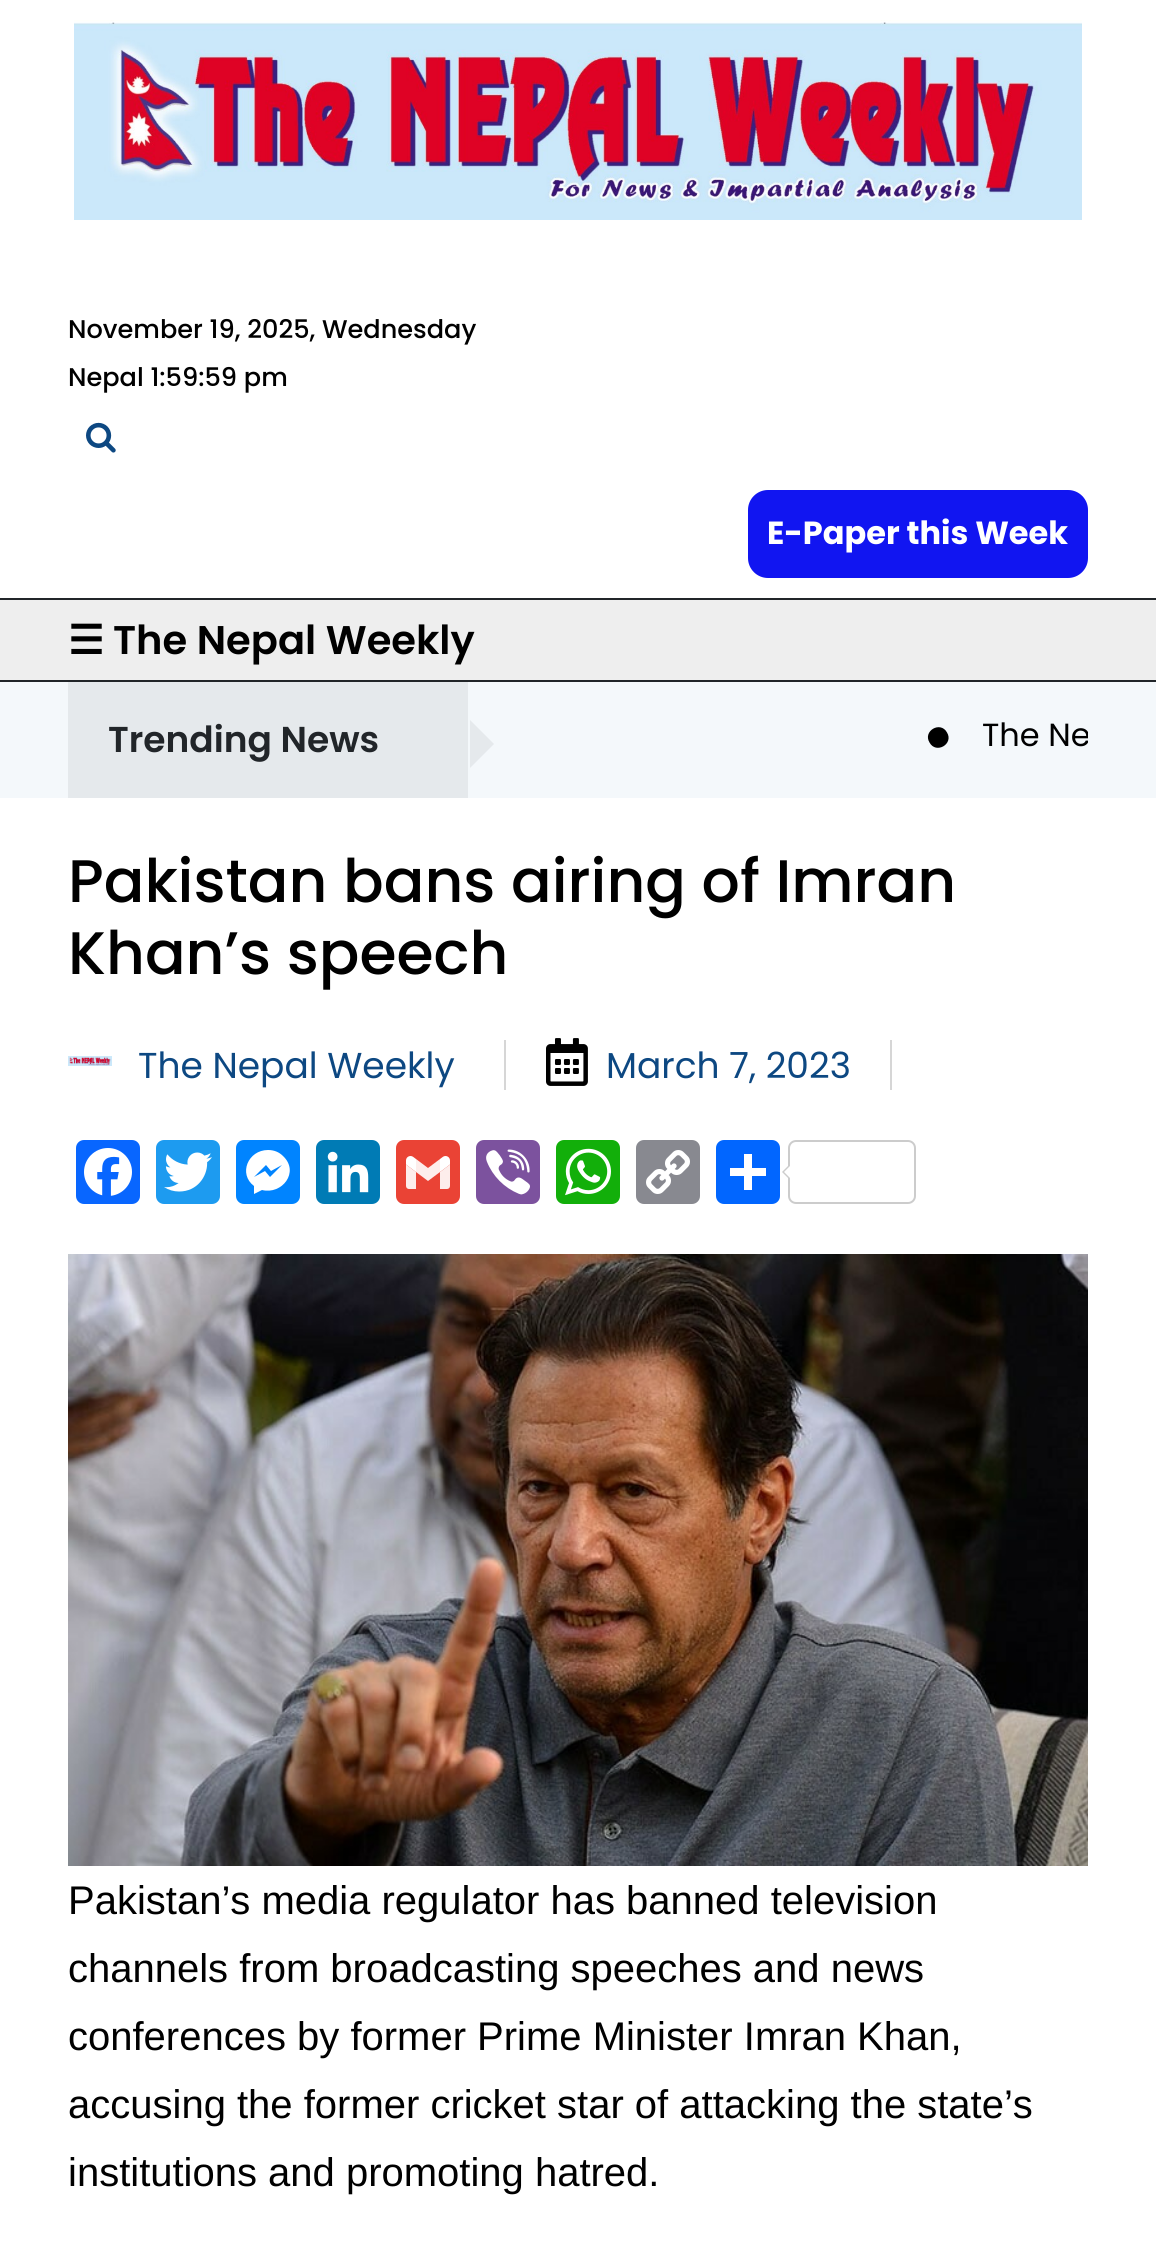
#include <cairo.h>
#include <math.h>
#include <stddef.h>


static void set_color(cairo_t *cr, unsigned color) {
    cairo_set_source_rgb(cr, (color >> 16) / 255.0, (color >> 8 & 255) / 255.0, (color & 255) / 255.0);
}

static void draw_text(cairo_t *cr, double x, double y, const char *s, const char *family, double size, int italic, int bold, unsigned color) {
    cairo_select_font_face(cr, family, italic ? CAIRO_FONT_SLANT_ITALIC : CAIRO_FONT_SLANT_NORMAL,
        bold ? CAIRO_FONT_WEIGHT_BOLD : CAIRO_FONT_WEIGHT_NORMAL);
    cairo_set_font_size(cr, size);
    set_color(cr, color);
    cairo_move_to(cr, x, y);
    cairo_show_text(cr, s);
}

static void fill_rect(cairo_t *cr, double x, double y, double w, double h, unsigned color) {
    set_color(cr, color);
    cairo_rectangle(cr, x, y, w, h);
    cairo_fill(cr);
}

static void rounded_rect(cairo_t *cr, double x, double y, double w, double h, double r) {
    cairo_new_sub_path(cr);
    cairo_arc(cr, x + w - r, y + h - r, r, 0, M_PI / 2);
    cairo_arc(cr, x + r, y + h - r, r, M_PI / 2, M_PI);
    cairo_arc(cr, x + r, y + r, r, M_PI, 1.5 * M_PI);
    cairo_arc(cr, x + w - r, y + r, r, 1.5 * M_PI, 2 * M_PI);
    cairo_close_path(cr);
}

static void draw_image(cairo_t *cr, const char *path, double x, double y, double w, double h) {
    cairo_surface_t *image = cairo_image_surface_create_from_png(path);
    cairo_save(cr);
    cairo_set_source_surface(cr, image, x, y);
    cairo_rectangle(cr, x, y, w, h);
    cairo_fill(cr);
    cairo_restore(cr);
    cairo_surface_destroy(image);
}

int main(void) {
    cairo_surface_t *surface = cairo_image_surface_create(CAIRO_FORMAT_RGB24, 1156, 2242);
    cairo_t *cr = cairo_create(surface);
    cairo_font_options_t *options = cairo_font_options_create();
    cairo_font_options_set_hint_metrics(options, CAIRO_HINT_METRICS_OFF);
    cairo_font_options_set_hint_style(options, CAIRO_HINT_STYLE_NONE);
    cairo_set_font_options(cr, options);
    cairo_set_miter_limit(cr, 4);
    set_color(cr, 0xFFFFFF);
    cairo_paint(cr);
    draw_image(cr, "assets/img1.png", 74, 20, 1008, 200);
    draw_text(cr, 68, 338, "November 19, 2025, Wednesday", "Poppins Medium", 25.6, 0, 0, 0x000000);
    draw_text(cr, 68, 386, "Nepal 1:59:59 pm", "Poppins Medium", 25.6, 0, 0, 0x000000);
    draw_image(cr, "assets/img2.png", 86, 422, 30, 31);
    set_color(cr, 0x1115F1);
    rounded_rect(cr, 748, 490, 340, 88, 20);
    cairo_fill(cr);
    draw_text(cr, 767, 544, "E-Paper this Week", "Poppins", 32, 0, 1, 0xFFFFFF);
    fill_rect(cr, 0, 600, 1156, 80, 0xEEEEEE);
    fill_rect(cr, 0, 598, 1156, 2, 0x212529);
    fill_rect(cr, 0, 680, 1156, 2, 0x212529);
    draw_text(cr, 68, 654, "☰", "DejaVu Sans", 40, 0, 1, 0x000000);
    draw_text(cr, 113, 654, "The Nepal Weekly", "Poppins SemiBold", 40, 0, 0, 0x000000);
    fill_rect(cr, 0, 682, 1156, 116, 0xF4F8FB);
    fill_rect(cr, 68, 682, 400, 116, 0xE5E9EC);
    draw_text(cr, 108, 752, "Trending News", "Poppins SemiBold", 36, 0, 0, 0x212529);
    set_color(cr, 0xE5E9EC);
    cairo_new_path(cr);
    cairo_move_to(cr, 470, 768);
    cairo_line_to(cr, 470, 720);
    cairo_line_to(cr, 494, 744);
    cairo_close_path(cr);
    cairo_fill(cr);
    set_color(cr, 0x000000);
    cairo_new_path(cr);
    cairo_move_to(cr, 947, 732.5);
    cairo_curve_to(cr, 954, 744, 936, 754.5, 929.5, 742.5);
    cairo_curve_to(cr, 922.5, 731, 940.5, 720.5, 947, 732.5);
    cairo_close_path(cr);
    cairo_fill(cr);
    cairo_save(cr);
    cairo_rectangle(cr, 468, 682, 620, 116);
    cairo_clip(cr);
    draw_text(cr, 982, 746, "The Ne", "Poppins", 32, 0, 0, 0x000000);
    cairo_restore(cr);
    draw_text(cr, 68, 902, "Pakistan bans airing of Imran", "Poppins Medium", 60, 0, 0, 0x000000);
    draw_text(cr, 68, 974, "Khan’s speech", "Poppins Medium", 60, 0, 0, 0x000000);
    fill_rect(cr, 504, 1040, 2, 50, 0xD6D6D6);
    draw_image(cr, "assets/img3.png", 68, 1056, 44, 10);
    draw_text(cr, 138, 1078, "The Nepal Weekly", "Poppins", 36, 0, 0, 0x0D4882);
    fill_rect(cr, 890, 1040, 2, 50, 0xD6D6D6);
    draw_image(cr, "assets/img4.png", 546, 1038, 42, 48);
    draw_text(cr, 606, 1078, "March 7, 2023", "Poppins", 36, 0, 0, 0x0D4882);
    set_color(cr, 0x0866FF);
    rounded_rect(cr, 76, 1140, 64, 64, 8);
    cairo_fill(cr);
    draw_image(cr, "assets/img5.png", 84, 1148, 48, 48);
    set_color(cr, 0x1D9BF0);
    rounded_rect(cr, 156, 1140, 64, 64, 8);
    cairo_fill(cr);
    draw_image(cr, "assets/img6.png", 164, 1152, 48, 40);
    set_color(cr, 0x0084FF);
    rounded_rect(cr, 236, 1140, 64, 64, 8);
    cairo_fill(cr);
    set_color(cr, 0xFFFFFF);
    cairo_new_path(cr);
    cairo_move_to(cr, 268, 1150);
    cairo_curve_to(cr, 248, 1150, 238, 1174, 254, 1186);
    cairo_line_to(cr, 254, 1194);
    cairo_line_to(cr, 262, 1190);
    cairo_curve_to(cr, 282, 1195, 300, 1172, 283, 1156);
    cairo_curve_to(cr, 279, 1152, 274, 1150, 268, 1150);
    cairo_move_to(cr, 270, 1177);
    cairo_line_to(cr, 265, 1171);
    cairo_line_to(cr, 254, 1177);
    cairo_line_to(cr, 266, 1165);
    cairo_line_to(cr, 271, 1171);
    cairo_line_to(cr, 282, 1165);
    cairo_close_path(cr);
    cairo_fill(cr);
    set_color(cr, 0x007BB5);
    rounded_rect(cr, 316, 1140, 64, 64, 8);
    cairo_fill(cr);
    draw_image(cr, "assets/img7.png", 327, 1151, 42, 42);
    set_color(cr, 0xEA4335);
    rounded_rect(cr, 396, 1140, 64, 64, 8);
    cairo_fill(cr);
    draw_image(cr, "assets/img8.png", 406, 1156, 44, 33);
    set_color(cr, 0x7C529E);
    rounded_rect(cr, 476, 1140, 64, 64, 8);
    cairo_fill(cr);
    draw_image(cr, "assets/img9.png", 486, 1149, 44, 46);
    set_color(cr, 0x12AF0A);
    rounded_rect(cr, 556, 1140, 64, 64, 8);
    cairo_fill(cr);
    draw_image(cr, "assets/img10.png", 565, 1148, 46, 48);
    set_color(cr, 0x888990);
    rounded_rect(cr, 636, 1140, 64, 64, 8);
    cairo_fill(cr);
    draw_image(cr, "assets/img11.png", 646, 1150, 44, 44);
    set_color(cr, 0x0166FF);
    rounded_rect(cr, 716, 1140, 64, 64, 8);
    cairo_fill(cr);
    fill_rect(cr, 744, 1154, 8, 36, 0xFFFFFF);
    fill_rect(cr, 730, 1168, 36, 8, 0xFFFFFF);
    rounded_rect(cr, 789, 1141, 126, 62, 7);
    set_color(cr, 0xCCCCCC);
    cairo_stroke(cr);
    cairo_new_path(cr);
    cairo_move_to(cr, 790, 1164);
    cairo_line_to(cr, 790, 1180);
    cairo_line_to(cr, 782, 1172);
    cairo_close_path(cr);
    cairo_fill(cr);
    set_color(cr, 0xFFFFFF);
    cairo_new_path(cr);
    cairo_move_to(cr, 792, 1164);
    cairo_line_to(cr, 792, 1180);
    cairo_line_to(cr, 784, 1172);
    cairo_close_path(cr);
    cairo_fill(cr);
    draw_image(cr, "assets/img12.png", 68, 1254, 1020, 612);
    draw_text(cr, 68, 1914, "Pakistan’s media regulator has banned television", "Liberation Sans", 40, 0, 0, 0x000000);
    draw_text(cr, 68, 1982, "channels from broadcasting speeches and news", "Liberation Sans", 40, 0, 0, 0x000000);
    draw_text(cr, 68, 2050, "conferences by former Prime Minister Imran Khan,", "Liberation Sans", 40, 0, 0, 0x000000);
    draw_text(cr, 68, 2118, "accusing the former cricket star of attacking the state’s", "Liberation Sans", 40, 0, 0, 0x000000);
    draw_text(cr, 68, 2186, "institutions and promoting hatred.", "Liberation Sans", 40, 0, 0, 0x000000);
    cairo_surface_write_to_png(surface, "output.png");
    cairo_font_options_destroy(options);
    cairo_destroy(cr);
    cairo_surface_destroy(surface);
    return 0;
}
